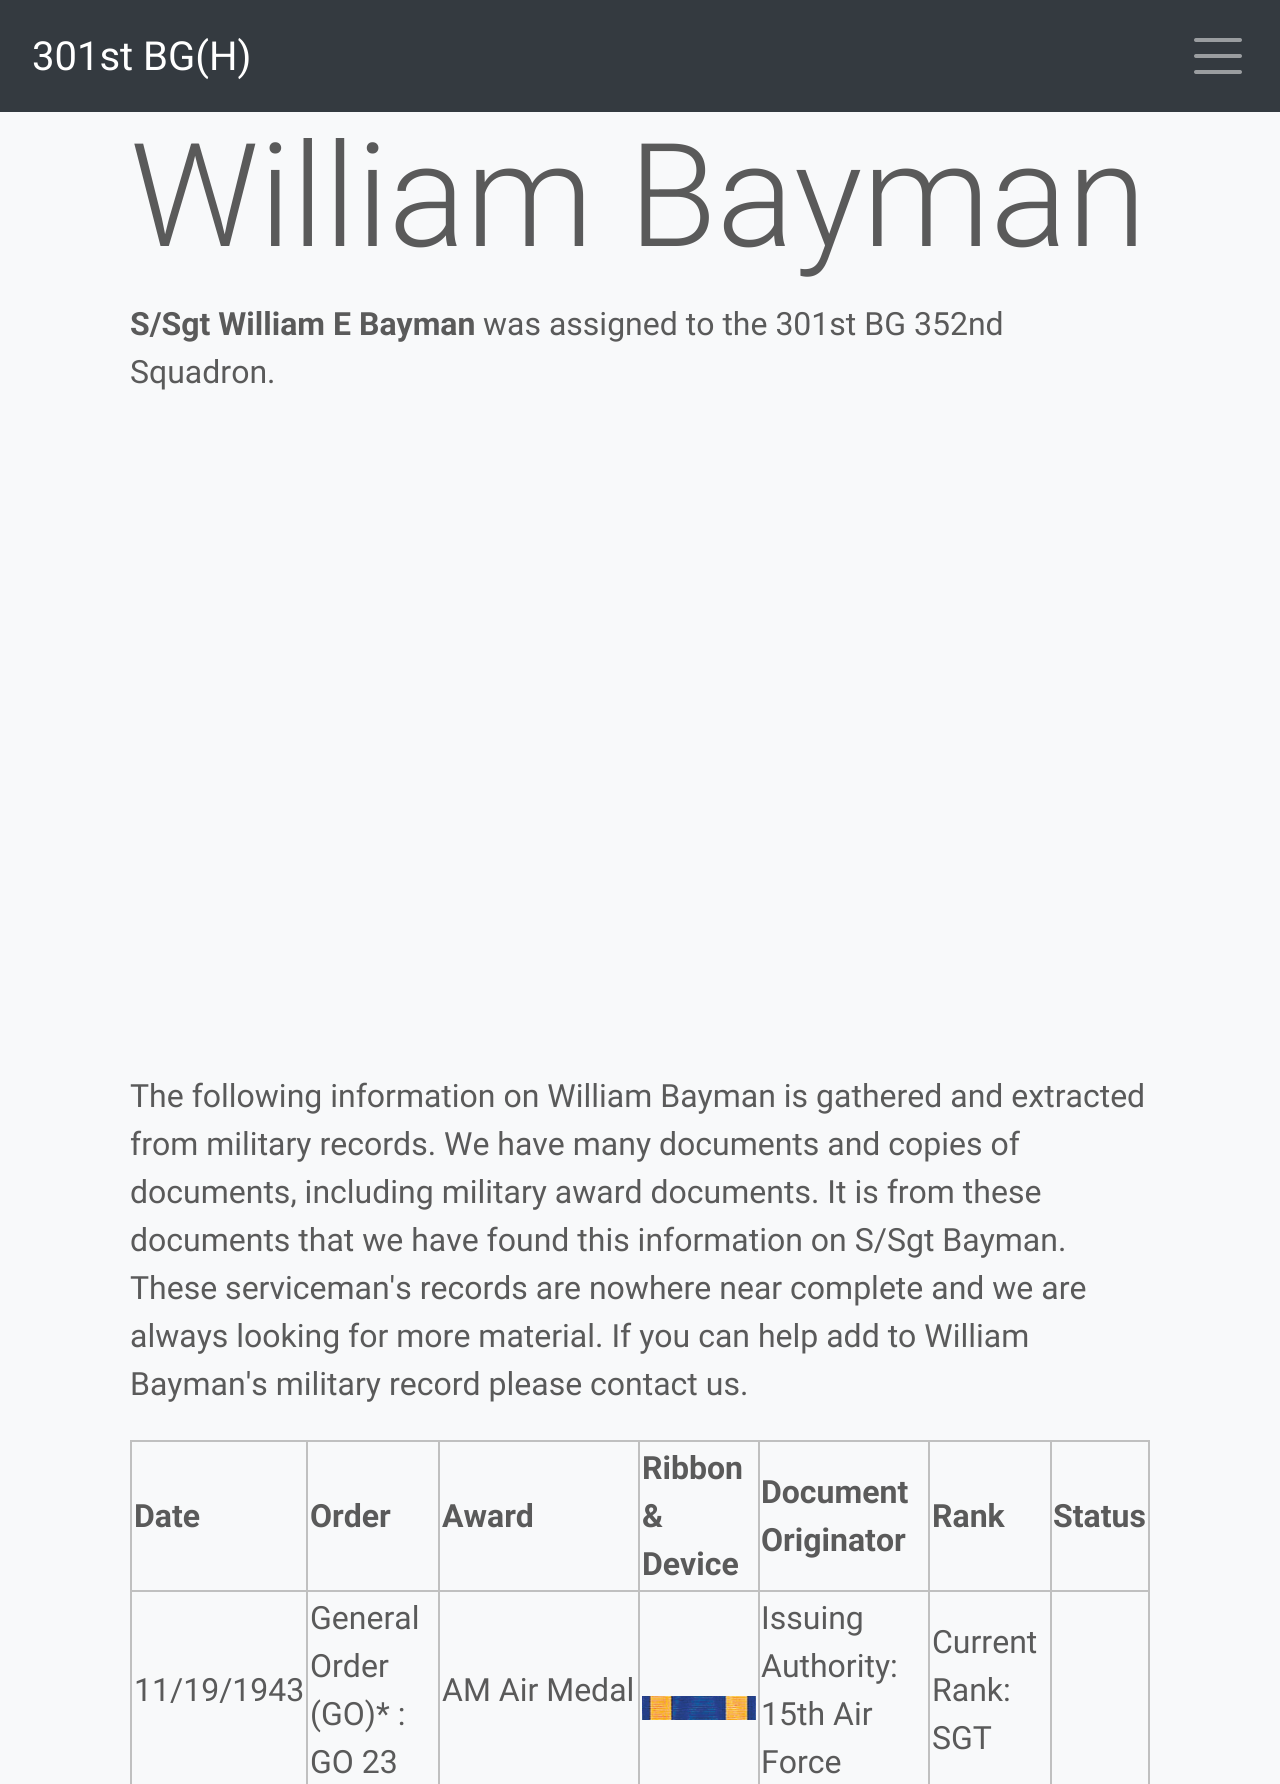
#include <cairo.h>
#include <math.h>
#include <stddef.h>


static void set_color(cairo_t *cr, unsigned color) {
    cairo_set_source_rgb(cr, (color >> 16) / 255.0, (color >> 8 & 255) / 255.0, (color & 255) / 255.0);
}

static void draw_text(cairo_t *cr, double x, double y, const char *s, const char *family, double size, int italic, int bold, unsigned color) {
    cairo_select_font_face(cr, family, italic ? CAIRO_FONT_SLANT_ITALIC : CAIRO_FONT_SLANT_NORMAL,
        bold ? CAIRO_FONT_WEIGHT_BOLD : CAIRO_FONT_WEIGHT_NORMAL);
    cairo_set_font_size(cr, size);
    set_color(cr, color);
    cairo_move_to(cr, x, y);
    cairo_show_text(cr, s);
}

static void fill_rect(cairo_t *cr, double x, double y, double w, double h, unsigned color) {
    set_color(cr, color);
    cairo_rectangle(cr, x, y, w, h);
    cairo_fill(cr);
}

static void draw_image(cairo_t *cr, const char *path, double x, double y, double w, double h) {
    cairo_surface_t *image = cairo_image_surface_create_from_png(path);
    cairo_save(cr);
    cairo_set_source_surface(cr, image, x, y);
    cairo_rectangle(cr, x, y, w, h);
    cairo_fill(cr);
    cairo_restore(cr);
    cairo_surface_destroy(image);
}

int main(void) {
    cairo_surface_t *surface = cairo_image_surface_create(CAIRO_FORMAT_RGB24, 1280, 1784);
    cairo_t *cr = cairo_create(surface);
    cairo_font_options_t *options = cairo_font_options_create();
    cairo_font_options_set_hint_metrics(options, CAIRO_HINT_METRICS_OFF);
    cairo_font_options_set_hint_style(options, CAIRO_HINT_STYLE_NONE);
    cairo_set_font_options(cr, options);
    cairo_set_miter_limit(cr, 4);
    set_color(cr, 0xF8F9FA);
    cairo_paint(cr);
    fill_rect(cr, 0, 0, 1280, 112, 0x343A40);
    draw_text(cr, 32, 70, "301st BG(H)", "Roboto", 40, 0, 0, 0xFFFFFF);
    cairo_new_path(cr);
    cairo_move_to(cr, 1196, 40);
    cairo_line_to(cr, 1240, 40);
    cairo_move_to(cr, 1196, 56);
    cairo_line_to(cr, 1240, 56);
    cairo_move_to(cr, 1196, 72);
    cairo_line_to(cr, 1240, 72);
    set_color(cr, 0x9A9DA0);
    cairo_set_line_width(cr, 4);
    cairo_set_line_cap(cr, CAIRO_LINE_CAP_ROUND);
    cairo_stroke(cr);
    draw_text(cr, 130, 246, "William Bayman", "Roboto Light", 144, 0, 0, 0x5A5A5A);
    draw_text(cr, 130, 335, "S/Sgt William E Bayman", "Roboto", 32, 0, 1, 0x5A5A5A);
    draw_text(cr, 483, 335, "was assigned to the 301st BG 352nd", "Roboto", 32, 0, 0, 0x5A5A5A);
    draw_text(cr, 130, 383, "Squadron.", "Roboto", 32, 0, 0, 0x5A5A5A);
    draw_text(cr, 130, 1107, "The following information on William Bayman is gathered and extracted", "Roboto", 32, 0, 0, 0x5A5A5A);
    draw_text(cr, 130, 1155, "from military records. We have many documents and copies of", "Roboto", 32, 0, 0, 0x5A5A5A);
    draw_text(cr, 130, 1203, "documents, including military award documents. It is from these", "Roboto", 32, 0, 0, 0x5A5A5A);
    draw_text(cr, 130, 1251, "documents that we have found this information on S/Sgt Bayman.", "Roboto", 32, 0, 0, 0x5A5A5A);
    draw_text(cr, 130, 1299, "These serviceman's records are nowhere near complete and we are", "Roboto", 32, 0, 0, 0x5A5A5A);
    draw_text(cr, 130, 1347, "always looking for more material. If you can help add to William", "Roboto", 32, 0, 0, 0x5A5A5A);
    draw_text(cr, 130, 1395, "Bayman's military record please contact us.", "Roboto", 32, 0, 0, 0x5A5A5A);
    fill_rect(cr, 130, 1440, 1020, 2, 0xC0C0C0);
    fill_rect(cr, 1148, 1440, 2, 344, 0xC0C0C0);
    fill_rect(cr, 130, 1440, 2, 344, 0xC0C0C0);
    draw_text(cr, 134, 1527, "Date", "Roboto", 32, 0, 1, 0x5A5A5A);
    fill_rect(cr, 1050, 1590, 100, 2, 0xC0C0C0);
    fill_rect(cr, 1050, 1590, 2, 194, 0xC0C0C0);
    fill_rect(cr, 928, 1590, 124, 2, 0xC0C0C0);
    fill_rect(cr, 928, 1590, 2, 194, 0xC0C0C0);
    fill_rect(cr, 758, 1590, 172, 2, 0xC0C0C0);
    fill_rect(cr, 758, 1590, 2, 194, 0xC0C0C0);
    fill_rect(cr, 638, 1590, 122, 2, 0xC0C0C0);
    fill_rect(cr, 638, 1590, 2, 194, 0xC0C0C0);
    fill_rect(cr, 438, 1590, 202, 2, 0xC0C0C0);
    fill_rect(cr, 438, 1590, 2, 194, 0xC0C0C0);
    fill_rect(cr, 306, 1590, 134, 2, 0xC0C0C0);
    fill_rect(cr, 306, 1590, 2, 194, 0xC0C0C0);
    fill_rect(cr, 130, 1590, 178, 2, 0xC0C0C0);
    fill_rect(cr, 306, 1440, 2, 152, 0xC0C0C0);
    draw_text(cr, 310, 1527, "Order", "Roboto", 32, 0, 1, 0x5A5A5A);
    fill_rect(cr, 438, 1440, 2, 152, 0xC0C0C0);
    draw_text(cr, 442, 1527, "Award", "Roboto", 32, 0, 1, 0x5A5A5A);
    fill_rect(cr, 638, 1440, 2, 152, 0xC0C0C0);
    draw_text(cr, 642, 1479, "Ribbon", "Roboto", 32, 0, 1, 0x5A5A5A);
    draw_text(cr, 642, 1527, "&", "Roboto", 32, 0, 1, 0x5A5A5A);
    draw_text(cr, 642, 1575, "Device", "Roboto", 32, 0, 1, 0x5A5A5A);
    fill_rect(cr, 758, 1440, 2, 152, 0xC0C0C0);
    draw_text(cr, 761, 1503, "Document", "Roboto", 32, 0, 1, 0x5A5A5A);
    draw_text(cr, 761, 1551, "Originator", "Roboto", 32, 0, 1, 0x5A5A5A);
    fill_rect(cr, 928, 1440, 2, 152, 0xC0C0C0);
    draw_text(cr, 932, 1527, "Rank", "Roboto", 32, 0, 1, 0x5A5A5A);
    fill_rect(cr, 1050, 1440, 2, 152, 0xC0C0C0);
    draw_text(cr, 1053, 1527, "Status", "Roboto", 32, 0, 1, 0x5A5A5A);
    draw_text(cr, 134, 1701, "11/19/1943", "Roboto", 32, 0, 0, 0x5A5A5A);
    draw_text(cr, 310, 1629, "General", "Roboto", 32, 0, 0, 0x5A5A5A);
    draw_text(cr, 310, 1677, "Order", "Roboto", 32, 0, 0, 0x5A5A5A);
    draw_text(cr, 310, 1725, "(GO)* :", "Roboto", 32, 0, 0, 0x5A5A5A);
    draw_text(cr, 310, 1773, "GO 23", "Roboto", 32, 0, 0, 0x5A5A5A);
    draw_text(cr, 442, 1701, "AM Air Medal", "Roboto", 32, 0, 0, 0x5A5A5A);
    draw_image(cr, "assets/img1.png", 642, 1696, 114, 24);
    draw_text(cr, 761, 1629, "Issuing", "Roboto", 32, 0, 0, 0x5A5A5A);
    draw_text(cr, 761, 1677, "Authority:", "Roboto", 32, 0, 0, 0x5A5A5A);
    draw_text(cr, 761, 1725, "15th Air", "Roboto", 32, 0, 0, 0x5A5A5A);
    draw_text(cr, 761, 1773, "Force", "Roboto", 32, 0, 0, 0x5A5A5A);
    draw_text(cr, 932, 1653, "Current", "Roboto", 32, 0, 0, 0x5A5A5A);
    draw_text(cr, 932, 1701, "Rank:", "Roboto", 32, 0, 0, 0x5A5A5A);
    draw_text(cr, 932, 1749, "SGT", "Roboto", 32, 0, 0, 0x5A5A5A);
    cairo_surface_write_to_png(surface, "output.png");
    cairo_font_options_destroy(options);
    cairo_destroy(cr);
    cairo_surface_destroy(surface);
    return 0;
}
